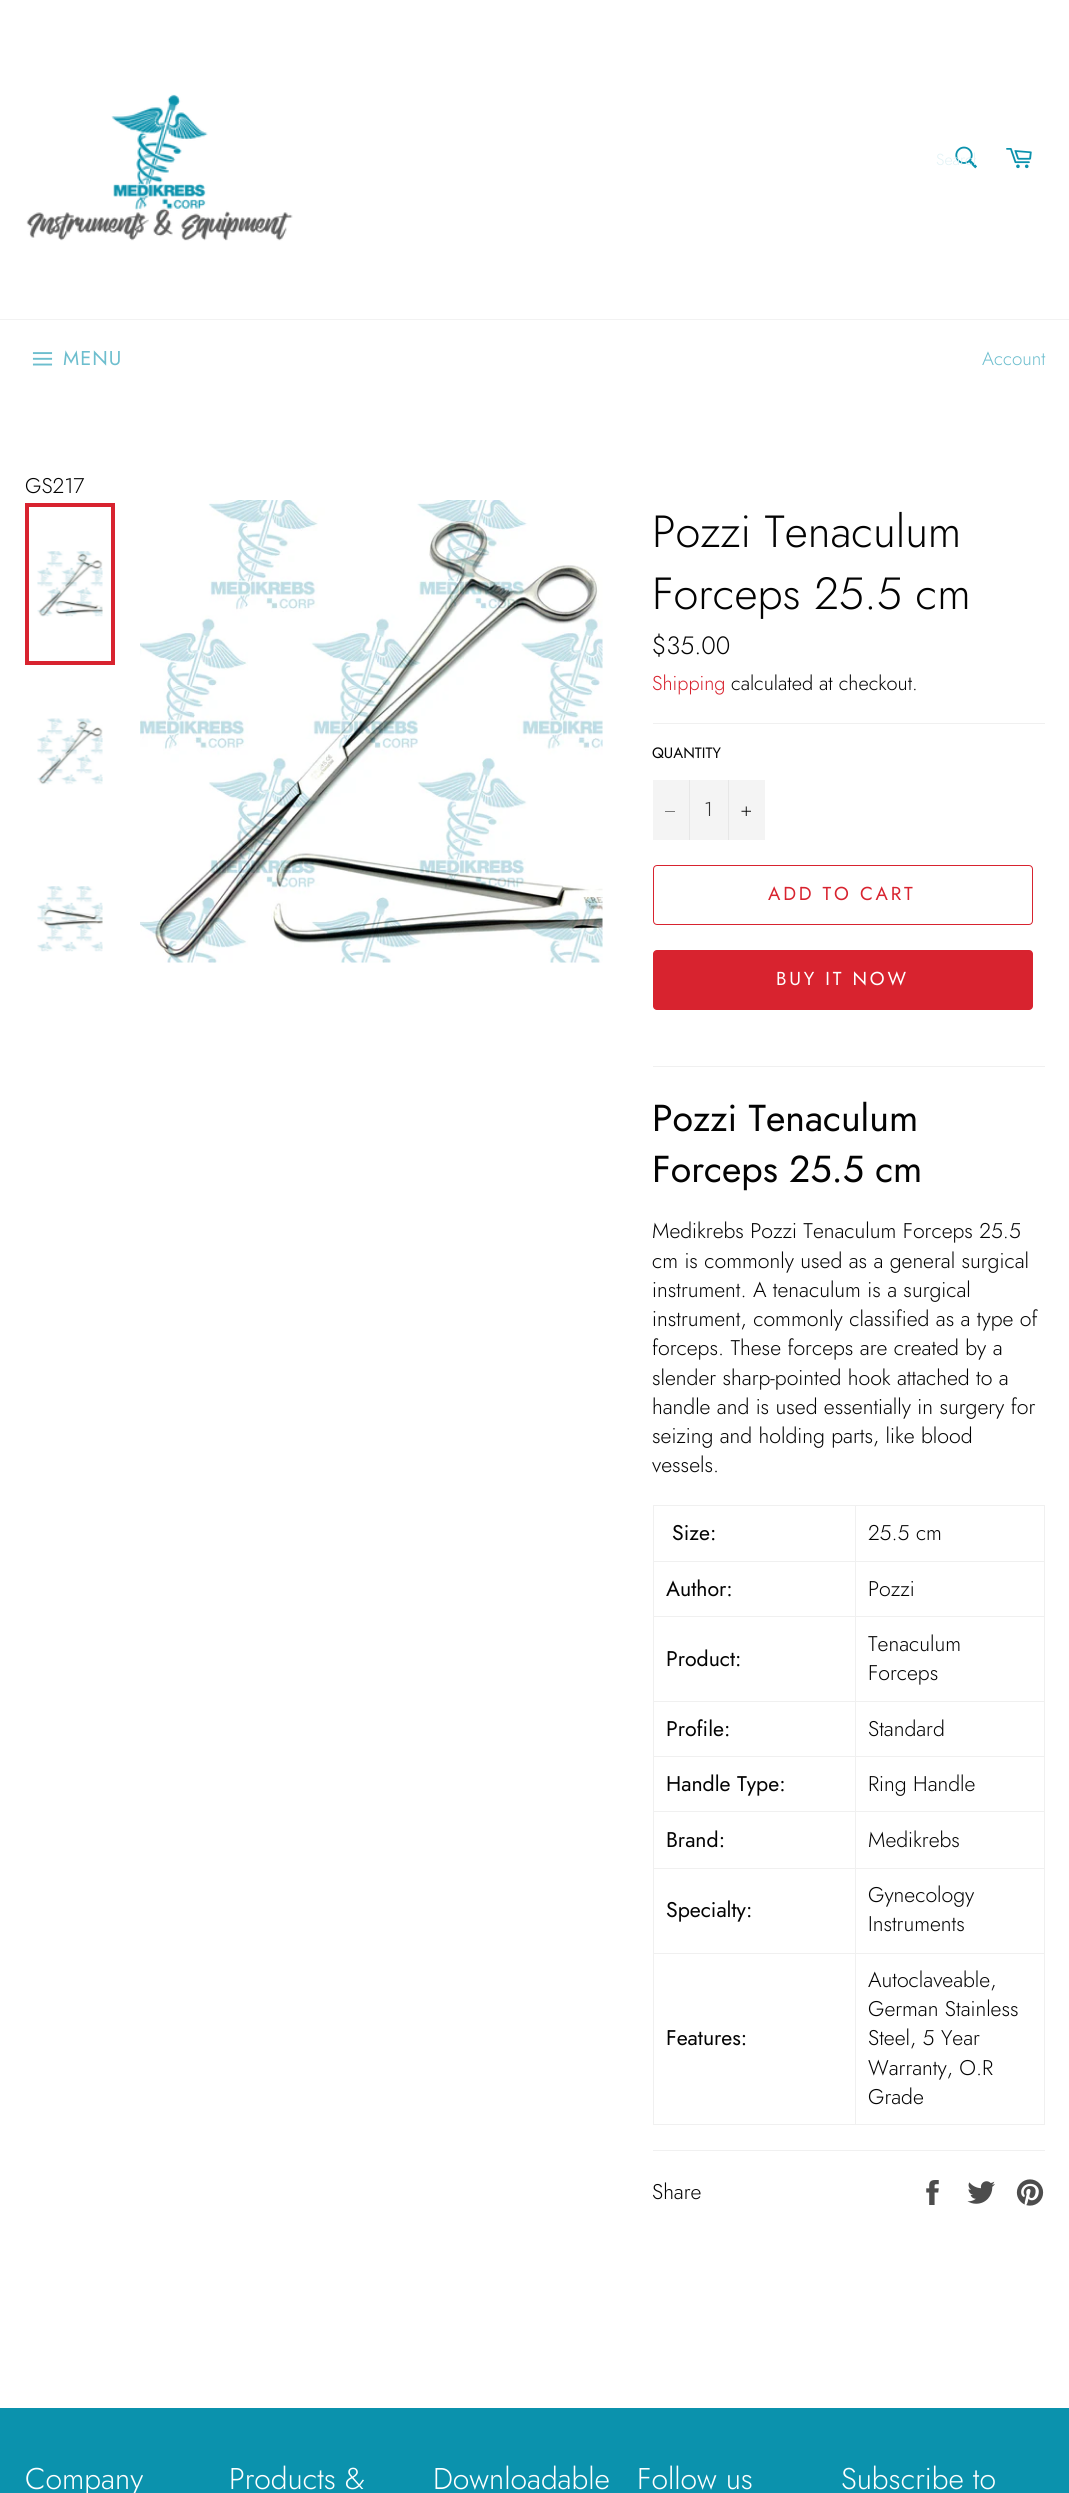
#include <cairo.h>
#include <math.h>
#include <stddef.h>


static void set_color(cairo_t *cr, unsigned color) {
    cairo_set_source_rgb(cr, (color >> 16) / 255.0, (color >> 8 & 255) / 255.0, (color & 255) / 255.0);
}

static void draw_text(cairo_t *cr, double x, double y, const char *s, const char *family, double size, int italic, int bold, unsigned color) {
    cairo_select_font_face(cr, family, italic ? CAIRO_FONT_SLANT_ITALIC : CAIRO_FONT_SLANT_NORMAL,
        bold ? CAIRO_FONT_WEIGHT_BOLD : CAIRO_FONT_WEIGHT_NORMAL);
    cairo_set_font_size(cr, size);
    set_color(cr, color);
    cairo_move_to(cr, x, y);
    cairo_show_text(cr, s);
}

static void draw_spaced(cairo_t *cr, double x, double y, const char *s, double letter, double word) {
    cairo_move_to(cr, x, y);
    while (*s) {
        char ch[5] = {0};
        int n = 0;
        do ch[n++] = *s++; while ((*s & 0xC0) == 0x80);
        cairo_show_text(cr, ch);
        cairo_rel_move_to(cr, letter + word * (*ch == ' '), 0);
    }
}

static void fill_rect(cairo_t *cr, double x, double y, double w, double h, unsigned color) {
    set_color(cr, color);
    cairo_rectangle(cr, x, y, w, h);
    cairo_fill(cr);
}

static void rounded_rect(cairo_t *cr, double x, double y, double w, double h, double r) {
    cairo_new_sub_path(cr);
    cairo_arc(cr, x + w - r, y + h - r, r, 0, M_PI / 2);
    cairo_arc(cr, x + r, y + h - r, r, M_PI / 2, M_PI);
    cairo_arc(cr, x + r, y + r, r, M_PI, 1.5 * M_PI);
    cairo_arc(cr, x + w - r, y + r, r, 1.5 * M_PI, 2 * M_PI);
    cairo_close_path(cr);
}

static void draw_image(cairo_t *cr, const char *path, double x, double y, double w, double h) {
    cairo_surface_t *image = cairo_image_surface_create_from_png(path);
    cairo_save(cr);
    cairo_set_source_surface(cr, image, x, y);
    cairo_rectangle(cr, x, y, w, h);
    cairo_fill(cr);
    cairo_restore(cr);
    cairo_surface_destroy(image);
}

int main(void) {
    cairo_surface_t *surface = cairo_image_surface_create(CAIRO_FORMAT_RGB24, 1069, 2493);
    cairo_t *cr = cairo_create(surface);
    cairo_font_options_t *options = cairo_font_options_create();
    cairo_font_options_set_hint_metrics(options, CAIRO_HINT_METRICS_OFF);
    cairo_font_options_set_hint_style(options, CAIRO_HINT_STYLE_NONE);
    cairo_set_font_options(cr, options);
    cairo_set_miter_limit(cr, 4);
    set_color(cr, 0xFFFFFF);
    cairo_paint(cr);
    draw_image(cr, "assets/img1.png", 26, 94, 267, 147);
    draw_image(cr, "assets/img2.png", 955, 146, 22, 23);
    cairo_save(cr);
    cairo_rectangle(cr, 936, 148, 40, 23);
    cairo_clip(cr);
    draw_text(cr, 936, 165, "Search", "Jost Light", 16, 0, 0, 0xE2F2F5);
    cairo_restore(cr);
    draw_image(cr, "assets/img3.png", 1006, 148, 26, 21);
    fill_rect(cr, 0, 319, 1069, 1, 0xF2F2F2);
    draw_image(cr, "assets/img4.png", 32, 352, 21, 14);
    cairo_select_font_face(cr, "Jost", CAIRO_FONT_SLANT_NORMAL, CAIRO_FONT_WEIGHT_NORMAL);
    cairo_set_font_size(cr, 20);
    set_color(cr, 0x6DBECE);
    draw_spaced(cr, 63, 365, "MENU", 1, 0);
    draw_text(cr, 982, 365, "Account", "Jost Light", 18.75, 0, 0, 0x6DBECE);
    draw_text(cr, 25, 493, "GS217", "Jost Light", 21.25, 0, 0, 0x030303);
    draw_image(cr, "assets/img5.png", 37, 551, 66, 66);
    cairo_rectangle(cr, 27, 505, 86, 158);
    set_color(cr, 0xD8232F);
    cairo_set_line_width(cr, 4);
    cairo_stroke(cr);
    draw_image(cr, "assets/img6.png", 37, 718, 66, 67);
    draw_image(cr, "assets/img7.png", 37, 886, 66, 66);
    draw_image(cr, "assets/img8.png", 140, 500, 463, 463);
    draw_text(cr, 652, 547, "Pozzi Tenaculum", "Jost Light", 45, 0, 0, 0x030303);
    draw_text(cr, 652, 609, "Forceps 25.5 cm", "Jost Light", 45, 0, 0, 0x030303);
    draw_text(cr, 652, 654, "$35.00", "Jost Light", 25, 0, 0, 0x030303);
    draw_text(cr, 652, 690, "Shipping", "Jost Light", 20, 0, 0, 0xD8232F);
    draw_text(cr, 731, 690, "calculated at checkout.", "Jost Light", 20, 0, 0, 0x030303);
    fill_rect(cr, 653, 723, 392, 1, 0xF0F0F0);
    draw_text(cr, 652, 758, "QUANTITY", "Jost", 15, 0, 0, 0x030303);
    fill_rect(cr, 653, 780, 112, 60, 0xF4F4F4);
    fill_rect(cr, 689, 780, 1, 60, 0xE7E7E7);
    set_color(cr, 0x000000);
    cairo_set_fill_rule(cr, CAIRO_FILL_RULE_EVEN_ODD);
    cairo_new_path(cr);
    cairo_move_to(cr, 675, 811);
    cairo_line_to(cr, 675, 811.5);
    cairo_line_to(cr, 665, 811.5);
    cairo_line_to(cr, 665, 811);
    cairo_close_path(cr);
    cairo_fill(cr);
    draw_text(cr, 704, 816, "1", "Jost Light", 20, 0, 0, 0x333333);
    fill_rect(cr, 728, 780, 1, 60, 0xE7E7E7);
    draw_image(cr, "assets/img9.png", 741, 806, 10, 10);
    rounded_rect(cr, 653.5, 865.5, 379, 59, 3.5);
    set_color(cr, 0xD8232F);
    cairo_set_line_width(cr, 1);
    cairo_stroke(cr);
    cairo_select_font_face(cr, "Jost", CAIRO_FONT_SLANT_NORMAL, CAIRO_FONT_WEIGHT_NORMAL);
    cairo_set_font_size(cr, 18.75);
    draw_spaced(cr, 768, 900, "ADD TO CART", 2.75, 0);
    rounded_rect(cr, 653, 950, 380, 60, 4);
    cairo_fill(cr);
    set_color(cr, 0xFFFFFF);
    draw_spaced(cr, 776, 985, "BUY IT NOW", 2.75, 0);
    fill_rect(cr, 653, 1066, 392, 1, 0xF0F0F0);
    draw_text(cr, 652, 1131, "Pozzi Tenaculum", "Jost", 37.5, 0, 0, 0x030303);
    draw_text(cr, 652, 1182, "Forceps 25.5 cm", "Jost", 37.5, 0, 0, 0x030303);
    draw_text(cr, 652, 1238, "Medikrebs Pozzi Tenaculum Forceps 25.5", "Jost Light", 21.25, 0, 0, 0x030303);
    draw_text(cr, 652, 1268, "cm is commonly used as a general surgical", "Jost Light", 21.25, 0, 0, 0x030303);
    draw_text(cr, 652, 1297, "instrument. A tenaculum is a surgical", "Jost Light", 21.25, 0, 0, 0x030303);
    draw_text(cr, 652, 1326, "instrument, commonly classified as a type of", "Jost Light", 21.25, 0, 0, 0x030303);
    draw_text(cr, 652, 1355, "forceps. These forceps are created by a", "Jost Light", 21.25, 0, 0, 0x030303);
    draw_text(cr, 652, 1385, "slender sharp-pointed hook attached to a", "Jost Light", 21.25, 0, 0, 0x030303);
    draw_text(cr, 652, 1414, "handle and is used essentially in surgery for", "Jost Light", 21.25, 0, 0, 0x030303);
    draw_text(cr, 652, 1443, "seizing and holding parts, like blood", "Jost Light", 21.25, 0, 0, 0x030303);
    draw_text(cr, 652, 1472, "vessels.", "Jost Light", 21.25, 0, 0, 0x030303);
    fill_rect(cr, 855, 1505, 190, 1, 0xF0F0F0);
    fill_rect(cr, 855, 1561, 190, 1, 0xF0F0F0);
    fill_rect(cr, 855, 1616, 190, 1, 0xF0F0F0);
    fill_rect(cr, 855, 1701, 190, 1, 0xF0F0F0);
    fill_rect(cr, 855, 1756, 190, 1, 0xF0F0F0);
    fill_rect(cr, 855, 1811, 190, 1, 0xF0F0F0);
    fill_rect(cr, 855, 1868, 190, 1, 0xF0F0F0);
    fill_rect(cr, 855, 1953, 190, 1, 0xF0F0F0);
    fill_rect(cr, 1044, 1953, 1, 172, 0xF0F0F0);
    fill_rect(cr, 855, 2124, 190, 1, 0xF0F0F0);
    fill_rect(cr, 855, 1953, 1, 172, 0xF0F0F0);
    fill_rect(cr, 653, 1953, 203, 1, 0xF0F0F0);
    fill_rect(cr, 855, 1868, 1, 86, 0xF0F0F0);
    fill_rect(cr, 653, 1868, 203, 1, 0xF0F0F0);
    fill_rect(cr, 855, 1811, 1, 58, 0xF0F0F0);
    fill_rect(cr, 653, 1811, 203, 1, 0xF0F0F0);
    fill_rect(cr, 855, 1756, 1, 57, 0xF0F0F0);
    fill_rect(cr, 653, 1756, 203, 1, 0xF0F0F0);
    fill_rect(cr, 855, 1701, 1, 57, 0xF0F0F0);
    fill_rect(cr, 653, 1701, 203, 1, 0xF0F0F0);
    fill_rect(cr, 855, 1616, 1, 87, 0xF0F0F0);
    fill_rect(cr, 653, 1616, 203, 1, 0xF0F0F0);
    fill_rect(cr, 855, 1561, 1, 57, 0xF0F0F0);
    fill_rect(cr, 653, 1561, 203, 1, 0xF0F0F0);
    fill_rect(cr, 855, 1505, 1, 58, 0xF0F0F0);
    fill_rect(cr, 653, 1505, 203, 1, 0xF0F0F0);
    fill_rect(cr, 653, 2124, 203, 1, 0xF0F0F0);
    fill_rect(cr, 653, 1953, 1, 172, 0xF0F0F0);
    fill_rect(cr, 653, 1868, 1, 86, 0xF0F0F0);
    fill_rect(cr, 653, 1811, 1, 58, 0xF0F0F0);
    fill_rect(cr, 653, 1756, 1, 57, 0xF0F0F0);
    fill_rect(cr, 653, 1701, 1, 57, 0xF0F0F0);
    fill_rect(cr, 653, 1616, 1, 87, 0xF0F0F0);
    fill_rect(cr, 653, 1561, 1, 57, 0xF0F0F0);
    fill_rect(cr, 653, 1505, 1, 58, 0xF0F0F0);
    draw_text(cr, 672, 1540, "Size:", "Jost", 21.25, 0, 0, 0x030303);
    fill_rect(cr, 1044, 1868, 1, 86, 0xF0F0F0);
    fill_rect(cr, 1044, 1811, 1, 58, 0xF0F0F0);
    fill_rect(cr, 1044, 1756, 1, 57, 0xF0F0F0);
    fill_rect(cr, 1044, 1701, 1, 57, 0xF0F0F0);
    fill_rect(cr, 1044, 1616, 1, 87, 0xF0F0F0);
    fill_rect(cr, 1044, 1561, 1, 57, 0xF0F0F0);
    fill_rect(cr, 1044, 1505, 1, 58, 0xF0F0F0);
    draw_text(cr, 868, 1540, "25.5 cm", "Jost Light", 21.25, 0, 0, 0x030303);
    draw_text(cr, 666, 1596, "Author:", "Jost", 21.25, 0, 0, 0x030303);
    draw_text(cr, 868, 1596, "Pozzi", "Jost Light", 21.25, 0, 0, 0x030303);
    draw_text(cr, 666, 1666, "Product:", "Jost", 21.25, 0, 0, 0x030303);
    draw_text(cr, 868, 1651, "Tenaculum", "Jost Light", 21.25, 0, 0, 0x030303);
    draw_text(cr, 868, 1680, "Forceps", "Jost Light", 21.25, 0, 0, 0x030303);
    draw_text(cr, 666, 1736, "Profile:", "Jost", 21.25, 0, 0, 0x030303);
    draw_text(cr, 868, 1736, "Standard", "Jost Light", 21.25, 0, 0, 0x030303);
    draw_text(cr, 666, 1791, "Handle Type:", "Jost", 21.25, 0, 0, 0x030303);
    draw_text(cr, 868, 1791, "Ring Handle", "Jost Light", 21.25, 0, 0, 0x030303);
    draw_text(cr, 666, 1847, "Brand:", "Jost", 21.25, 0, 0, 0x030303);
    draw_text(cr, 868, 1847, "Medikrebs", "Jost Light", 21.25, 0, 0, 0x030303);
    draw_text(cr, 666, 1917, "Specialty:", "Jost", 21.25, 0, 0, 0x030303);
    draw_text(cr, 868, 1902, "Gynecology", "Jost Light", 21.25, 0, 0, 0x030303);
    draw_text(cr, 868, 1931, "Instruments", "Jost Light", 21.25, 0, 0, 0x030303);
    draw_text(cr, 666, 2045, "Features:", "Jost", 21.25, 0, 0, 0x030303);
    draw_text(cr, 868, 1987, "Autoclaveable,", "Jost Light", 21.25, 0, 0, 0x030303);
    draw_text(cr, 868, 2016, "German Stainless", "Jost Light", 21.25, 0, 0, 0x030303);
    draw_text(cr, 868, 2045, "Steel, 5 Year", "Jost Light", 21.25, 0, 0, 0x030303);
    draw_text(cr, 868, 2075, "Warranty, O.R", "Jost Light", 21.25, 0, 0, 0x030303);
    draw_text(cr, 868, 2104, "Grade", "Jost Light", 21.25, 0, 0, 0x030303);
    fill_rect(cr, 653, 2150, 392, 1, 0xF0F0F0);
    draw_text(cr, 652, 2199, "Share", "Jost Light", 21.25, 0, 0, 0x030303);
    draw_image(cr, "assets/img10.png", 926, 2180, 13, 25);
    draw_image(cr, "assets/img11.png", 967, 2181, 28, 23);
    draw_image(cr, "assets/img12.png", 1016, 2179, 28, 27);
    fill_rect(cr, 0, 2408, 1069, 85, 0x0B92AD);
    draw_text(cr, 25, 2489, "Company", "Jost Light", 30, 0, 0, 0xFFFFFF);
    draw_text(cr, 229, 2489, "Products &", "Jost Light", 30, 0, 0, 0xFFFFFF);
    draw_text(cr, 433, 2489, "Downloadable", "Jost Light", 30, 0, 0, 0xFFFFFF);
    draw_text(cr, 637, 2489, "Follow us", "Jost Light", 30, 0, 0, 0xFFFFFF);
    draw_text(cr, 841, 2489, "Subscribe to", "Jost Light", 30, 0, 0, 0xFFFFFF);
    cairo_surface_write_to_png(surface, "output.png");
    cairo_font_options_destroy(options);
    cairo_destroy(cr);
    cairo_surface_destroy(surface);
    return 0;
}
